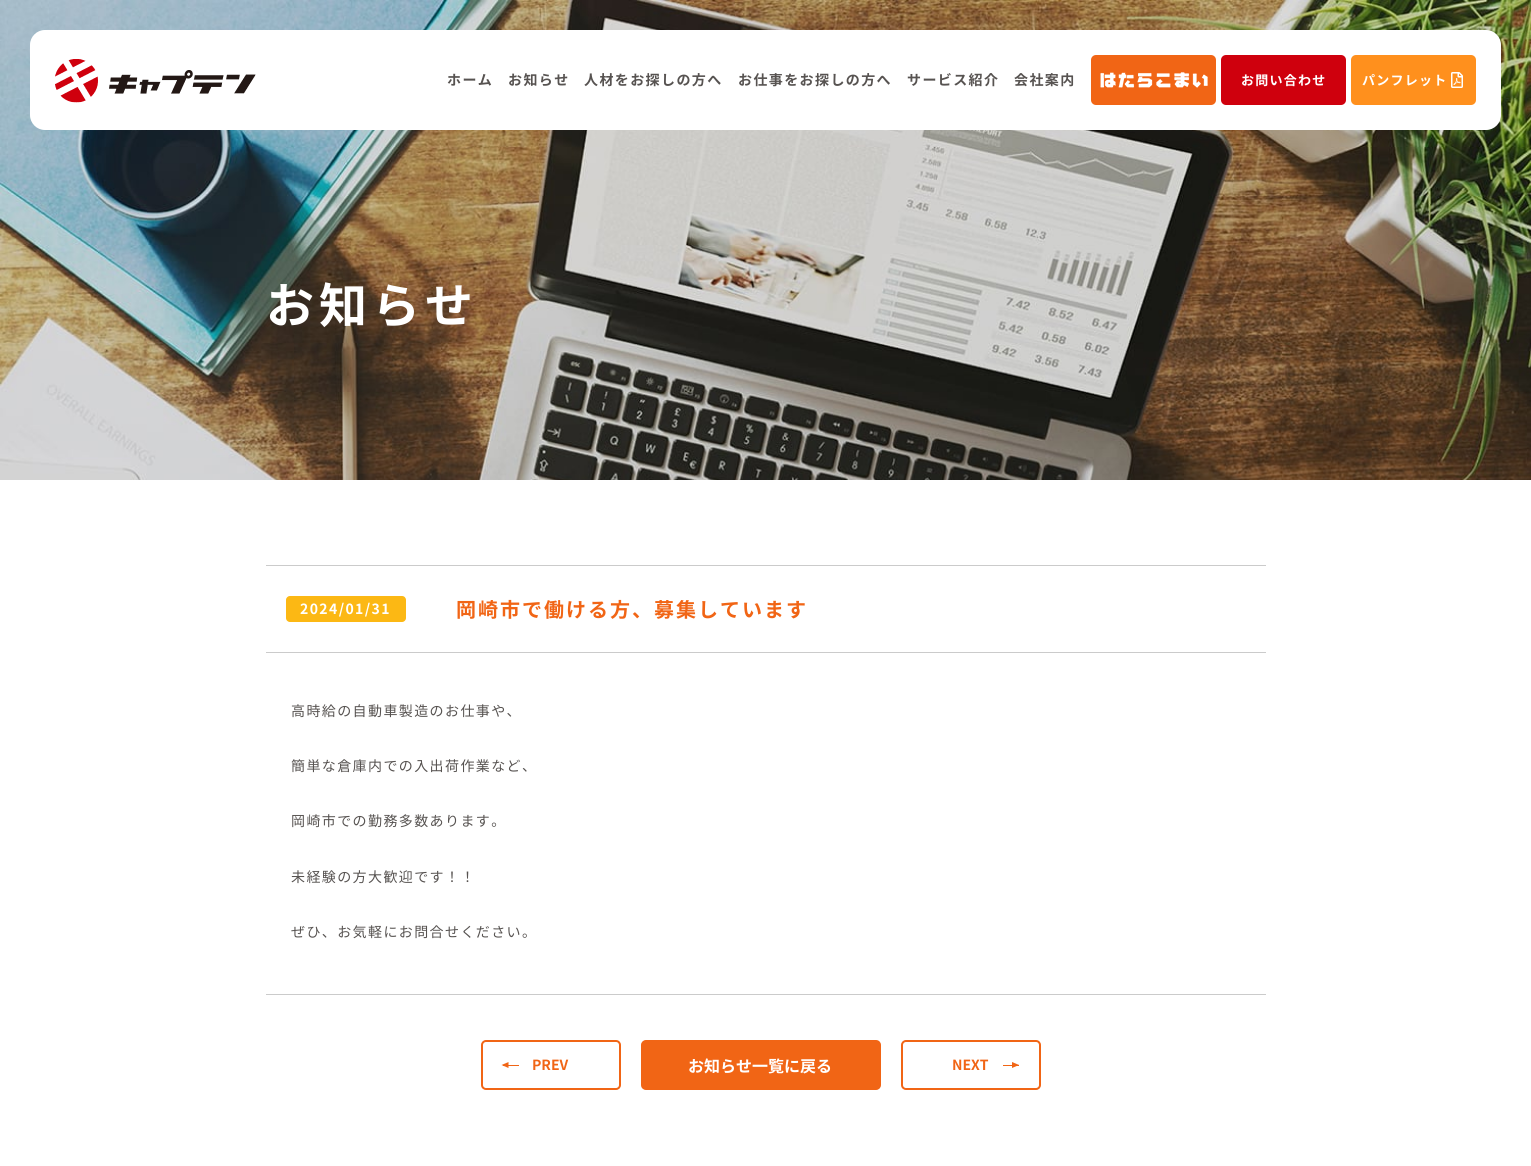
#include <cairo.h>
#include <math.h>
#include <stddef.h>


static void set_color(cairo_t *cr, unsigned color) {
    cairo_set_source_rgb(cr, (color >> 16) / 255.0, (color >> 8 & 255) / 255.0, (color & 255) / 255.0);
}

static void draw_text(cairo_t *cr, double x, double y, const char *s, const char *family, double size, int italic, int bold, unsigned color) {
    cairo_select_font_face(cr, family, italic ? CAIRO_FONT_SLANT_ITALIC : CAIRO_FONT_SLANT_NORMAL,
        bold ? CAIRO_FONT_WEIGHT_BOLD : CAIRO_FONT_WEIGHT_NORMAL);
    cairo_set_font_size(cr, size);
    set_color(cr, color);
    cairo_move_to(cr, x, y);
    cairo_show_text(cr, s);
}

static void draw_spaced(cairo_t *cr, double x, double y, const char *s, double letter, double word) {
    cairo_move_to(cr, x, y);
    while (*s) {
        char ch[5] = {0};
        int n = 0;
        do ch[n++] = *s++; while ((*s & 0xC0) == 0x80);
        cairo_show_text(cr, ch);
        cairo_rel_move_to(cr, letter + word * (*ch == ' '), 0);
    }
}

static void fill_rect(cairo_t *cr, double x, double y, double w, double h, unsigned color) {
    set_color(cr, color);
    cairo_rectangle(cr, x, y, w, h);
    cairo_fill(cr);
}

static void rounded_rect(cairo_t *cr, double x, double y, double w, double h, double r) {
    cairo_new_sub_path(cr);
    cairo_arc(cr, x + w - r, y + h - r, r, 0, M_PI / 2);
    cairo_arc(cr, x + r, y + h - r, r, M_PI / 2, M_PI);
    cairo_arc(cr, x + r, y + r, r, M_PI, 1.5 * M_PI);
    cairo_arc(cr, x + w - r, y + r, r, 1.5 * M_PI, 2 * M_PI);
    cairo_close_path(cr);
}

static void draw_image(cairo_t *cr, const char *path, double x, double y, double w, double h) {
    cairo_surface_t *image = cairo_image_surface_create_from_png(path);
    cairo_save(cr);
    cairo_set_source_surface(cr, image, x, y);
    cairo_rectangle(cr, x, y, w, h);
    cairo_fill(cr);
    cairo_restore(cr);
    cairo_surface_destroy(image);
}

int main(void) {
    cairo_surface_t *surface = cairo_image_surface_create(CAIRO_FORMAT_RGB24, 1531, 1166);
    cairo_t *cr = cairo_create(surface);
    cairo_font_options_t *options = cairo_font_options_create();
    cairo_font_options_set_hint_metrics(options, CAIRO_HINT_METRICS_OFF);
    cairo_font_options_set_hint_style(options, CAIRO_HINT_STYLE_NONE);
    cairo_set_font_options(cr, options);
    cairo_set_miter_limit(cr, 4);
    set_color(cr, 0xFFFFFF);
    cairo_paint(cr);
    draw_image(cr, "assets/img4.png", 0, 0, 1531, 480);
    set_color(cr, 0xFFFFFF);
    rounded_rect(cr, 30, 30, 1471, 100, 15);
    cairo_fill(cr);
    draw_image(cr, "assets/img1.png", 55, 59, 201, 44);
    cairo_select_font_face(cr, "Noto Sans JP", CAIRO_FONT_SLANT_NORMAL, CAIRO_FONT_WEIGHT_BOLD);
    cairo_set_font_size(cr, 14);
    set_color(cr, 0x575351);
    draw_spaced(cr, 447, 85, "ホーム", 1.4, 0);
    draw_spaced(cr, 508, 85, "お知らせ", 1.4, 0);
    draw_spaced(cr, 584, 85, "人材をお探しの方へ", 1.4, 0);
    draw_spaced(cr, 738, 85, "お仕事をお探しの方へ", 1.4, 0);
    draw_spaced(cr, 907, 85, "サービス紹介", 1.4, 0);
    draw_spaced(cr, 1014, 85, "会社案内", 1.4, 0);
    set_color(cr, 0xF16515);
    rounded_rect(cr, 1091, 55, 125, 50, 5);
    cairo_fill(cr);
    draw_image(cr, "assets/img2.png", 1100, 72, 108, 16);
    set_color(cr, 0xCF000D);
    rounded_rect(cr, 1221, 55, 125, 50, 5);
    cairo_fill(cr);
    cairo_set_font_size(cr, 13);
    set_color(cr, 0xFFFFFF);
    draw_spaced(cr, 1241, 85, "お問い合わせ", 1.25, 0);
    set_color(cr, 0xFF901D);
    rounded_rect(cr, 1351, 55, 125, 50, 5);
    cairo_fill(cr);
    set_color(cr, 0xFFFFFF);
    draw_spaced(cr, 1362, 85, "パンフレット", 1.25, 0);
    draw_image(cr, "assets/img3.png", 1451, 72, 12, 16);
    cairo_set_font_size(cr, 48);
    draw_spaced(cr, 266, 323, "お知らせ", 5, 0);
    fill_rect(cr, 266, 565, 1000, 1, 0xCBCBCB);
    fill_rect(cr, 266, 652, 1000, 1, 0xCBCBCB);
    set_color(cr, 0xFCB814);
    rounded_rect(cr, 286, 596, 120, 26, 4);
    cairo_fill(cr);
    cairo_set_font_size(cr, 14);
    set_color(cr, 0xFFFFFF);
    draw_spaced(cr, 300, 614, "2024/01/31", 1.4, 0);
    cairo_set_font_size(cr, 20);
    set_color(cr, 0xF16515);
    draw_spaced(cr, 456, 617, "岡崎市で働ける方、募集しています", 2, 0);
    fill_rect(cr, 266, 994, 1000, 1, 0xCBCBCB);
    cairo_select_font_face(cr, "Noto Sans JP", CAIRO_FONT_SLANT_NORMAL, CAIRO_FONT_WEIGHT_NORMAL);
    cairo_set_font_size(cr, 14);
    set_color(cr, 0x575351);
    draw_spaced(cr, 291, 716, "高時給の自動車製造のお仕事や、", 1.4, 0);
    draw_spaced(cr, 291, 771, "簡単な倉庫内での入出荷作業など、", 1.4, 0);
    draw_spaced(cr, 291, 826, "岡崎市での勤務多数あります。", 1.4, 0);
    draw_spaced(cr, 291, 882, "未経験の方大歓迎です！！", 1.4, 0);
    draw_spaced(cr, 291, 937, "ぜひ、お気軽にお問合せください。", 1.4, 0);
    rounded_rect(cr, 482, 1041, 138, 48, 4);
    set_color(cr, 0xF16515);
    cairo_stroke(cr);
    cairo_new_path(cr);
    cairo_move_to(cr, 508.5, 1062);
    cairo_line_to(cr, 508.5, 1068);
    cairo_line_to(cr, 501.5, 1065);
    cairo_close_path(cr);
    cairo_fill(cr);
    draw_text(cr, 532, 1070, "PREV", "Noto Sans JP", 14, 0, 1, 0xF16515);
    fill_rect(cr, 503, 1065, 16, 1, 0xF16515);
    rounded_rect(cr, 642, 1041, 238, 48, 4);
    cairo_fill_preserve(cr);
    cairo_stroke(cr);
    draw_text(cr, 688, 1072, "お知らせ一覧に戻る", "Noto Sans JP", 16, 0, 1, 0xFFFFFF);
    rounded_rect(cr, 902, 1041, 138, 48, 4);
    set_color(cr, 0xF16515);
    cairo_stroke(cr);
    draw_text(cr, 952, 1070, "NEXT", "Noto Sans JP", 14, 0, 1, 0xF16515);
    cairo_new_path(cr);
    cairo_move_to(cr, 1012, 1068);
    cairo_line_to(cr, 1012, 1062);
    cairo_line_to(cr, 1019, 1065);
    cairo_close_path(cr);
    cairo_fill(cr);
    fill_rect(cr, 1003, 1065, 16, 1, 0xF16515);
    cairo_surface_write_to_png(surface, "output.png");
    cairo_font_options_destroy(options);
    cairo_destroy(cr);
    cairo_surface_destroy(surface);
    return 0;
}
